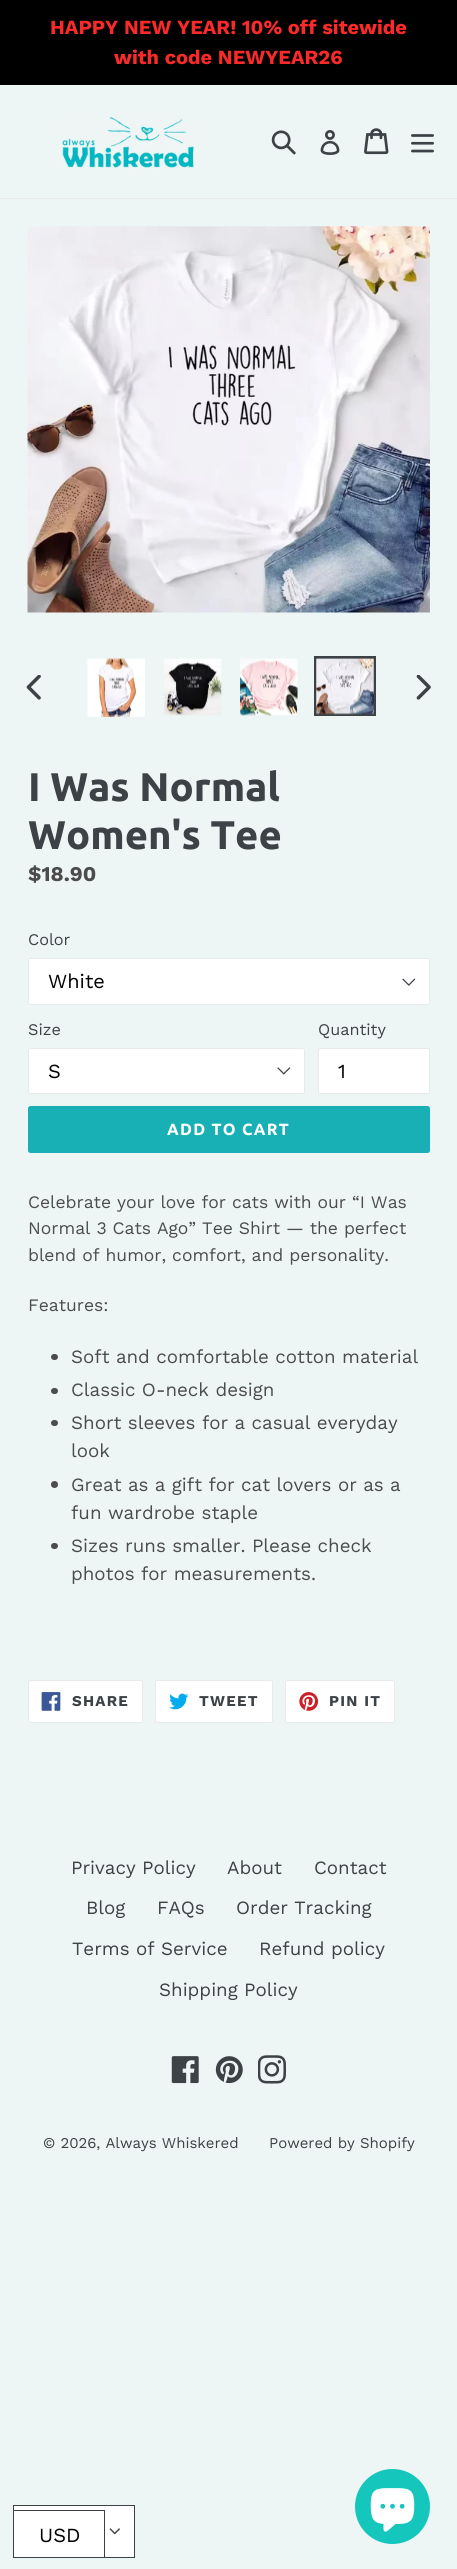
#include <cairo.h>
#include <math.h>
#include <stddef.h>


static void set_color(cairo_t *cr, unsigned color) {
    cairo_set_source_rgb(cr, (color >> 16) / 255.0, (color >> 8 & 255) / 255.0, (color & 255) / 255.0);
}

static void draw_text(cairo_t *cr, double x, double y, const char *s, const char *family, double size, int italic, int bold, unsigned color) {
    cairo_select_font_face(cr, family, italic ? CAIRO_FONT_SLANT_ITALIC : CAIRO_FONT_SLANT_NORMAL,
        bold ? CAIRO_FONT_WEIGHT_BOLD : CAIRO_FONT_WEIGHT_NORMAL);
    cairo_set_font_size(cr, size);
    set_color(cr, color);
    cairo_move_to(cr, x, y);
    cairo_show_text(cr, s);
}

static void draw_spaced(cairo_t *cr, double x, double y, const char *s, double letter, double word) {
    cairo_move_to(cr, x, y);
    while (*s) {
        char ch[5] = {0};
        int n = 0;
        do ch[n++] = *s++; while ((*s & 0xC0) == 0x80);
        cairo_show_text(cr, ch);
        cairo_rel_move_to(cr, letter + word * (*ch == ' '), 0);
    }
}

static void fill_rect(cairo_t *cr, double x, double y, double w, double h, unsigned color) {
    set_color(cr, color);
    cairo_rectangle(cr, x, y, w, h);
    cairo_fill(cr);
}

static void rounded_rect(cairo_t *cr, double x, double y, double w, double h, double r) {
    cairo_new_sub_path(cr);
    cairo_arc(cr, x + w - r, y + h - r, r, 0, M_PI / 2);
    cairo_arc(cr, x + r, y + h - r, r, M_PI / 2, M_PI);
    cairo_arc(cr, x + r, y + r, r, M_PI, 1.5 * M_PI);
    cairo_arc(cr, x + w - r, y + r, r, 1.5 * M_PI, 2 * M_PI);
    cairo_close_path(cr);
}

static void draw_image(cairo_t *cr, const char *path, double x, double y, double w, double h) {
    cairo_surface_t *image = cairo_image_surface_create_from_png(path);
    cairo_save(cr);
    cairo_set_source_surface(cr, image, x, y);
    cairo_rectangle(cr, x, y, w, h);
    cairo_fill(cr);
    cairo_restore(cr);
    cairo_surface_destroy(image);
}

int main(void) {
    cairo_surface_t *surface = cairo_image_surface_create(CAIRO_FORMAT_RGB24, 457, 2569);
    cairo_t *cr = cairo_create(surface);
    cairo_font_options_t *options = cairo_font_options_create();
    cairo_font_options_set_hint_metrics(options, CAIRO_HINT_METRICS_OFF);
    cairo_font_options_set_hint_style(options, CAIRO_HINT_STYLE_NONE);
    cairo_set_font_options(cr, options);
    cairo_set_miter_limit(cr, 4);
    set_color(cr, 0xEEF6F5);
    cairo_paint(cr);
    fill_rect(cr, 0, 0, 457, 85, 0x000000);
    draw_text(cr, 50, 34, "HAPPY NEW YEAR! 10% off sitewide", "Work Sans", 20, 0, 1, 0xFB2A2A);
    draw_text(cr, 114, 64, "with code NEWYEAR26", "Work Sans", 20, 0, 1, 0xFB2A2A);
    fill_rect(cr, 0, 198, 457, 1, 0xE8E9EB);
    draw_image(cr, "assets/img1.png", 61, 117, 133, 52);
    draw_image(cr, "assets/img2.png", 271, 130, 25, 25);
    draw_image(cr, "assets/img3.png", 320, 130, 20, 25);
    draw_image(cr, "assets/img4.png", 364, 128, 25, 27);
    draw_image(cr, "assets/img5.png", 411, 134, 23, 19);
    draw_image(cr, "assets/img6.png", 27, 226, 403, 387);
    draw_image(cr, "assets/img7.png", 26, 675, 15, 25);
    draw_image(cr, "assets/img8.png", 87, 658, 58, 59);
    draw_image(cr, "assets/img9.png", 163, 658, 59, 58);
    draw_image(cr, "assets/img10.png", 240, 658, 58, 58);
    cairo_rectangle(cr, 315.5, 657.5, 59, 57);
    set_color(cr, 0x3D4246);
    cairo_set_line_width(cr, 3);
    cairo_stroke(cr);
    draw_image(cr, "assets/img11.png", 316, 658, 58, 57);
    draw_image(cr, "assets/img12.png", 416, 675, 15, 25);
    draw_text(cr, 28, 801, "I Was Normal", "Ubuntu", 40, 0, 1, 0x3D4246);
    draw_text(cr, 28, 849, "Women's Tee", "Ubuntu", 40, 0, 1, 0x3D4246);
    draw_text(cr, 28, 881, "$18.90", "Work Sans", 21, 0, 1, 0x4C4C4C);
    draw_text(cr, 28, 945, "Color", "Work Sans", 16.25, 0, 0, 0x3D4246);
    set_color(cr, 0xFFFFFF);
    rounded_rect(cr, 28, 958, 402, 47, 2.5);
    cairo_fill(cr);
    draw_image(cr, "assets/img13.png", 402, 978, 14, 8);
    rounded_rect(cr, 28.5, 958.5, 401, 46, 2);
    set_color(cr, 0xE8E9EB);
    cairo_set_line_width(cr, 1);
    cairo_stroke(cr);
    draw_text(cr, 48, 988, "White", "Work Sans", 20, 0, 0, 0x000000);
    draw_text(cr, 28, 1035, "Size", "Work Sans", 16.25, 0, 0, 0x3D4246);
    set_color(cr, 0xFFFFFF);
    rounded_rect(cr, 28, 1048, 277, 46, 2.5);
    cairo_fill(cr);
    draw_image(cr, "assets/img14.png", 277, 1067, 14, 8);
    rounded_rect(cr, 28.5, 1048.5, 276, 45, 2);
    set_color(cr, 0xE8E9EB);
    cairo_stroke(cr);
    draw_text(cr, 48, 1078, "S", "Work Sans", 20, 0, 0, 0x000000);
    draw_text(cr, 318, 1035, "Quantity", "Work Sans", 16.25, 0, 0, 0x3D4246);
    set_color(cr, 0xFFFFFF);
    rounded_rect(cr, 318.5, 1048.5, 111, 45, 2);
    cairo_fill_preserve(cr);
    set_color(cr, 0xE8E9EB);
    cairo_stroke(cr);
    draw_text(cr, 338, 1078, "1", "Work Sans", 20, 0, 0, 0x000000);
    set_color(cr, 0x18B0B5);
    rounded_rect(cr, 28, 1106, 402, 47, 2.5);
    cairo_fill(cr);
    cairo_select_font_face(cr, "Ubuntu", CAIRO_FONT_SLANT_NORMAL, CAIRO_FONT_WEIGHT_BOLD);
    cairo_set_font_size(cr, 16.25);
    set_color(cr, 0xFFFFFF);
    draw_spaced(cr, 167, 1135, "ADD TO CART", 1.25, 0);
    draw_text(cr, 28, 1208, "Celebrate your love for cats with our “I Was", "Work Sans", 17.5, 0, 0, 0x4C4C4C);
    draw_text(cr, 28, 1234, "Normal 3 Cats Ago” Tee Shirt — the perfect", "Work Sans", 17.5, 0, 0, 0x4C4C4C);
    draw_text(cr, 28, 1261, "blend of humor, comfort, and personality.", "Work Sans", 17.5, 0, 0, 0x4C4C4C);
    draw_text(cr, 28, 1311, "Features:", "Work Sans", 17.5, 0, 0, 0x4C4C4C);
    rounded_rect(cr, 51, 1354, 7, 6, 3);
    cairo_fill(cr);
    draw_text(cr, 71, 1363, "Soft and comfortable cotton material", "Work Sans", 18.75, 0, 0, 0x4C4C4C);
    rounded_rect(cr, 51, 1388, 7, 6, 3);
    cairo_fill(cr);
    draw_text(cr, 71, 1396, "Classic O-neck design", "Work Sans", 18.75, 0, 0, 0x4C4C4C);
    rounded_rect(cr, 51, 1420, 7, 6, 3);
    cairo_fill(cr);
    draw_text(cr, 71, 1429, "Short sleeves for a casual everyday", "Work Sans", 18.75, 0, 0, 0x4C4C4C);
    draw_text(cr, 71, 1457, "look", "Work Sans", 18.75, 0, 0, 0x4C4C4C);
    cairo_new_path(cr);
    cairo_arc(cr, 54.5, 1484.5, 3.5, 0, 2 * M_PI);
    cairo_fill(cr);
    draw_text(cr, 71, 1491, "Great as a gift for cat lovers or as a", "Work Sans", 18.75, 0, 0, 0x4C4C4C);
    draw_text(cr, 71, 1519, "fun wardrobe staple", "Work Sans", 18.75, 0, 0, 0x4C4C4C);
    rounded_rect(cr, 51, 1543, 7, 6, 3);
    cairo_fill(cr);
    draw_text(cr, 71, 1552, "Sizes runs smaller. Please check", "Work Sans", 18.75, 0, 0, 0x4C4C4C);
    draw_text(cr, 71, 1580, "photos for measurements.", "Work Sans", 18.75, 0, 0, 0x4C4C4C);
    set_color(cr, 0xFFFFFF);
    rounded_rect(cr, 28.5, 1680.5, 114, 42, 2);
    cairo_fill_preserve(cr);
    set_color(cr, 0xE8E9EB);
    cairo_stroke(cr);
    draw_image(cr, "assets/img15.png", 41, 1692, 20, 19);
    cairo_select_font_face(cr, "Work Sans", CAIRO_FONT_SLANT_NORMAL, CAIRO_FONT_WEIGHT_BOLD);
    cairo_set_font_size(cr, 15);
    set_color(cr, 0x3D4246);
    draw_spaced(cr, 72, 1706, "SHARE", 1.25, 0);
    set_color(cr, 0xFFFFFF);
    rounded_rect(cr, 155.5, 1680.5, 117, 42, 2);
    cairo_fill_preserve(cr);
    set_color(cr, 0xE8E9EB);
    cairo_stroke(cr);
    draw_image(cr, "assets/img16.png", 169, 1693, 20, 17);
    set_color(cr, 0x3D4246);
    draw_spaced(cr, 199, 1706, "TWEET", 1.25, 0);
    set_color(cr, 0xFFFFFF);
    rounded_rect(cr, 285.5, 1680.5, 109, 42, 2);
    cairo_fill_preserve(cr);
    set_color(cr, 0xE8E9EB);
    cairo_stroke(cr);
    draw_image(cr, "assets/img17.png", 299, 1692, 20, 19);
    set_color(cr, 0x3D4246);
    draw_spaced(cr, 329, 1706, "PIN IT", 1.25, 0);
    draw_text(cr, 71, 1874, "Privacy Policy", "Work Sans", 18.75, 0, 0, 0x3D4246);
    draw_text(cr, 227, 1874, "About", "Work Sans", 18.75, 0, 0, 0x3D4246);
    draw_text(cr, 314, 1874, "Contact", "Work Sans", 18.75, 0, 0, 0x3D4246);
    draw_text(cr, 86, 1914, "Blog", "Work Sans", 18.75, 0, 0, 0x3D4246);
    draw_text(cr, 157, 1914, "FAQs", "Work Sans", 18.75, 0, 0, 0x3D4246);
    draw_text(cr, 236, 1914, "Order Tracking", "Work Sans", 18.75, 0, 0, 0x3D4246);
    draw_text(cr, 72, 1955, "Terms of Service", "Work Sans", 18.75, 0, 0, 0x3D4246);
    draw_text(cr, 259, 1955, "Refund policy", "Work Sans", 18.75, 0, 0, 0x3D4246);
    draw_text(cr, 159, 1996, "Shipping Policy", "Work Sans", 18.75, 0, 0, 0x3D4246);
    draw_image(cr, "assets/img18.png", 171, 2056, 28, 28);
    draw_image(cr, "assets/img19.png", 215, 2056, 28, 28);
    draw_image(cr, "assets/img20.png", 258, 2055, 28, 29);
    draw_text(cr, 43, 2148, "© 2026, Always Whiskered", "Work Sans", 15, 0, 0, 0x3D4246);
    draw_text(cr, 269, 2148, "Powered by Shopify", "Work Sans", 15, 0, 0, 0x3D4246);
    set_color(cr, 0xFFFFFF);
    cairo_rectangle(cr, 13.5, 2505.5, 121, 52);
    cairo_fill_preserve(cr);
    set_color(cr, 0x3D4246);
    cairo_stroke(cr);
    draw_image(cr, "assets/img21.png", 109, 2528, 11, 7);
    set_color(cr, 0x14C6BC);
    cairo_arc(cr, 392.5, 2506.5, 37.5, 0, 2 * M_PI);
    cairo_fill(cr);
    draw_image(cr, "assets/img22.png", 370, 2488, 45, 44);
    cairo_rectangle(cr, 13.5, 2510.5, 91, 47);
    set_color(cr, 0x3D4246);
    cairo_stroke(cr);
    draw_text(cr, 39, 2542, "USD", "Work Sans", 20, 0, 0, 0x000000);
    cairo_surface_write_to_png(surface, "output.png");
    cairo_font_options_destroy(options);
    cairo_destroy(cr);
    cairo_surface_destroy(surface);
    return 0;
}
